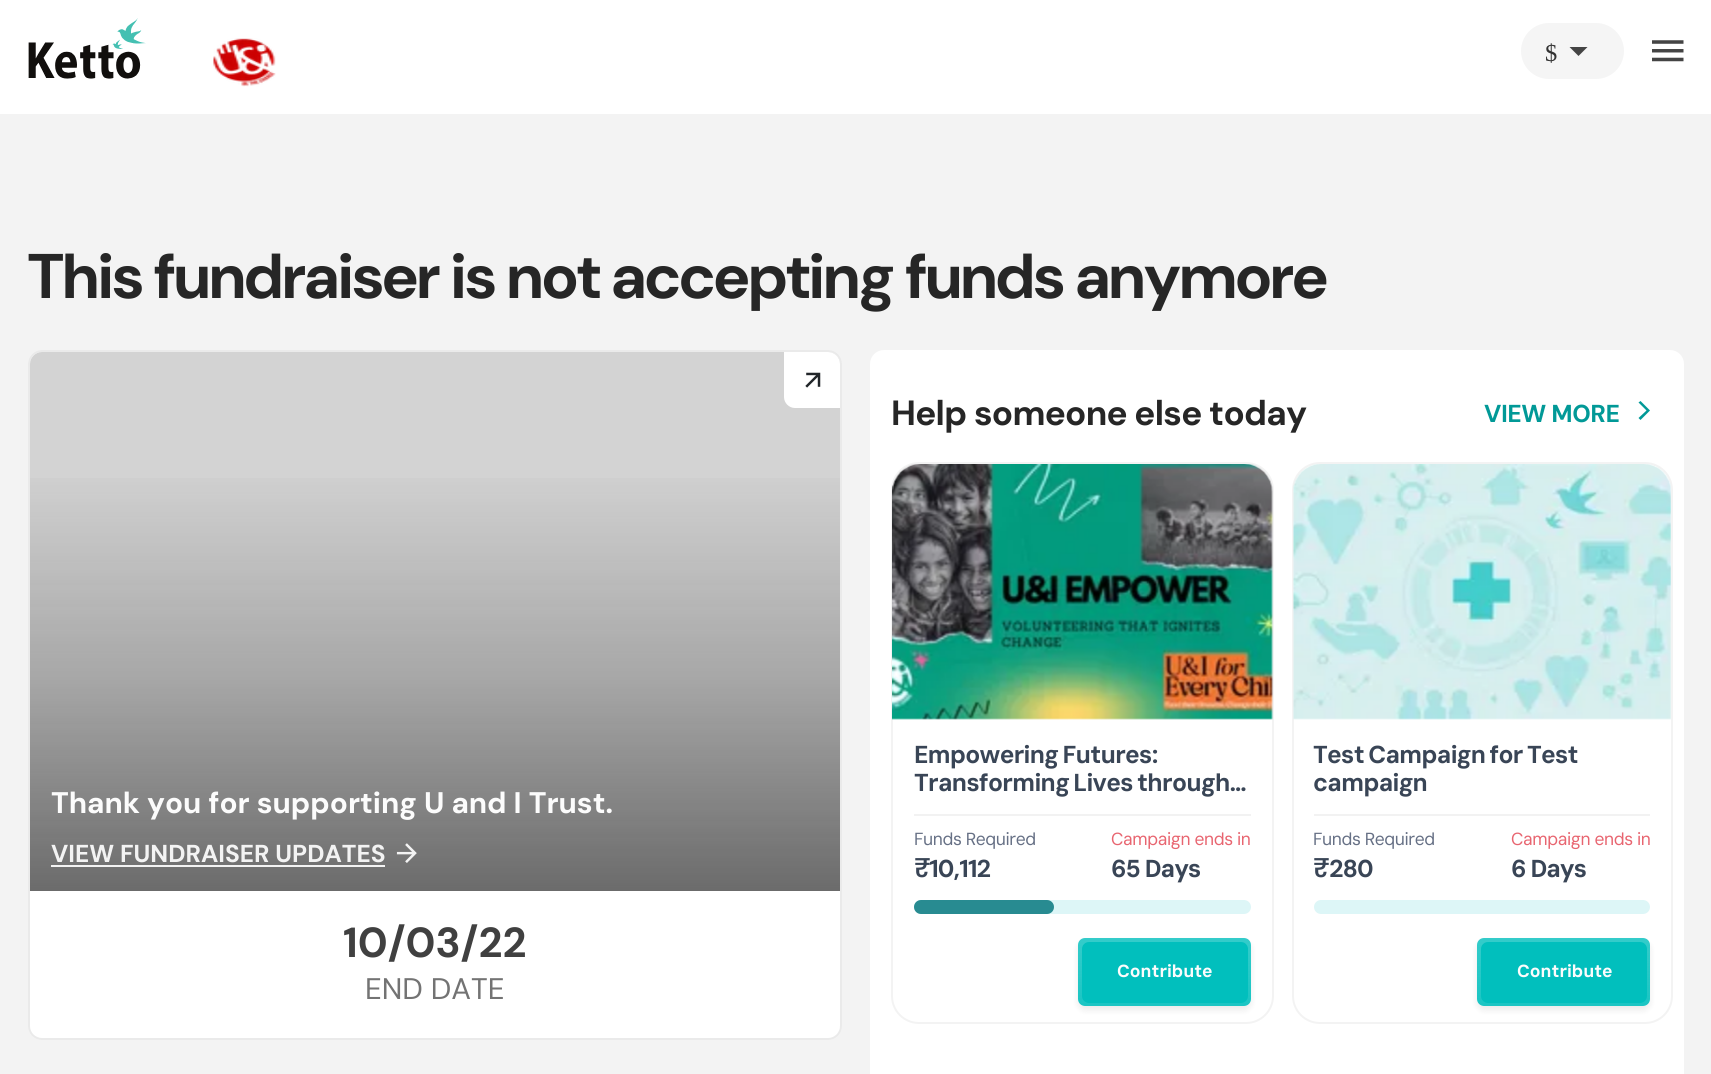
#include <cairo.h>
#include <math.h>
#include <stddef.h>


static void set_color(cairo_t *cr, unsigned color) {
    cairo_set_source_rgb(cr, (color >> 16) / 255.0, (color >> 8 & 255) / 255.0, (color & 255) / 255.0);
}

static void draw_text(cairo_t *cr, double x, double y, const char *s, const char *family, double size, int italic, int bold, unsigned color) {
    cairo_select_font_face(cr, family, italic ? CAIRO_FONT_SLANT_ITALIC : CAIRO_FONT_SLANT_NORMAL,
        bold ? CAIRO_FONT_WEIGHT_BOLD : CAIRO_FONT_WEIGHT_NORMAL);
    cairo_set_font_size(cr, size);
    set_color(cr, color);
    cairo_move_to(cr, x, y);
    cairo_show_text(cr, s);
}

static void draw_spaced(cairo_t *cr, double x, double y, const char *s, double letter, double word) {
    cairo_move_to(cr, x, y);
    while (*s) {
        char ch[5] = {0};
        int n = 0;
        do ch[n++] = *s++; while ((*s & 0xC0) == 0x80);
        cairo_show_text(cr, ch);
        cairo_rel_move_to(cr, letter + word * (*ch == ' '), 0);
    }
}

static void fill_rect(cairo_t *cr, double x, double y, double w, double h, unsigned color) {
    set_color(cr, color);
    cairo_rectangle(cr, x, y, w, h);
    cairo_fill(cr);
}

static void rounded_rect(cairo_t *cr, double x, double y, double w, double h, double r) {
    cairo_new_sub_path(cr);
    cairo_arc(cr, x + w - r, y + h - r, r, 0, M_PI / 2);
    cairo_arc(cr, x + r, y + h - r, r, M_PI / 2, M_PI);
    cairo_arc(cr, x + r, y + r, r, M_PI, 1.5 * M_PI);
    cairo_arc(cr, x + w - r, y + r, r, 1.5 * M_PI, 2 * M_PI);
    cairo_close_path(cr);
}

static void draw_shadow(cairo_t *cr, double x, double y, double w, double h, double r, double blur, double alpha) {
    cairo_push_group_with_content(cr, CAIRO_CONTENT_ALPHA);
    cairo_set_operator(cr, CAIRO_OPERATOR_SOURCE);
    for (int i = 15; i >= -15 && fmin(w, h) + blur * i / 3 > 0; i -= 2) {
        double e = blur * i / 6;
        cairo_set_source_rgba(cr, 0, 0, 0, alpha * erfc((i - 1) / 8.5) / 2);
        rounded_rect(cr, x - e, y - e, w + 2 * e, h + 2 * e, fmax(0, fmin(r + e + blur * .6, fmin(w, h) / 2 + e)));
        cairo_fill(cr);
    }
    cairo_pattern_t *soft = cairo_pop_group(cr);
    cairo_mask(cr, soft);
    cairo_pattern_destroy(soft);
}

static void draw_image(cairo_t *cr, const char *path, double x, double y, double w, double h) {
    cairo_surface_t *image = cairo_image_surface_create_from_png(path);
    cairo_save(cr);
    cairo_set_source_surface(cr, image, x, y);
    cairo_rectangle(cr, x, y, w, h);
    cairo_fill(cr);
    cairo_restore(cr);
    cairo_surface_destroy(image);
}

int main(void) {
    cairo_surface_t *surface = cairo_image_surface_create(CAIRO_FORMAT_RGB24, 1711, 1074);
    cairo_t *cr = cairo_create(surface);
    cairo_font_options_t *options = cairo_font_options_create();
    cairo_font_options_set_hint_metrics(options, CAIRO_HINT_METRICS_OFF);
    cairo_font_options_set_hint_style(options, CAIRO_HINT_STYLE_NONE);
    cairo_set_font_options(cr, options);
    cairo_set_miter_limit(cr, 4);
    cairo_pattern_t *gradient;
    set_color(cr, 0xF3F3F3);
    cairo_paint(cr);
    fill_rect(cr, 0, 0, 1711, 114, 0xFFFFFF);
    draw_image(cr, "assets/img1.png", 28, 18, 118, 61);
    draw_image(cr, "assets/img2.png", 213, 38, 63, 49);
    set_color(cr, 0xF5F5F5);
    rounded_rect(cr, 1521, 23, 103, 56, 28);
    cairo_fill(cr);
    draw_text(cr, 1545, 61, "$", "Liberation Serif", 24.5, 0, 0, 0x333333);
    set_color(cr, 0x444444);
    cairo_new_path(cr);
    cairo_move_to(cr, 1569.5, 47);
    cairo_line_to(cr, 1587.5, 47);
    cairo_line_to(cr, 1578.5, 56);
    cairo_close_path(cr);
    cairo_fill(cr);
    draw_image(cr, "assets/img3.png", 1652, 40, 32, 22);
    cairo_select_font_face(cr, "DM Sans", CAIRO_FONT_SLANT_NORMAL, CAIRO_FONT_WEIGHT_BOLD);
    cairo_set_font_size(cr, 63);
    set_color(cr, 0x262626);
    draw_spaced(cr, 28, 298, "This fundraiser is not accepting funds anymore", -1.25, 0);
    set_color(cr, 0xFFFFFF);
    rounded_rect(cr, 28, 350, 814, 690, 14);
    cairo_fill(cr);
    rounded_rect(cr, 29, 351, 812, 688, 13);
    cairo_set_source_rgba(cr, 0.8, 0.8, 0.8, 0.4);
    cairo_stroke(cr);
    set_color(cr, 0xD3D3D3);
    cairo_new_path(cr);
    cairo_move_to(cr, 42, 352);
    cairo_line_to(cr, 828, 352);
    cairo_curve_to(cr, 834.5, 352, 840, 357.5, 840, 364);
    cairo_line_to(cr, 840, 891);
    cairo_line_to(cr, 30, 891);
    cairo_line_to(cr, 30, 364);
    cairo_curve_to(cr, 30, 357.5, 35.5, 352, 42, 352);
    cairo_close_path(cr);
    cairo_fill(cr);
    set_color(cr, 0xFFFFFF);
    cairo_new_path(cr);
    cairo_move_to(cr, 784, 352);
    cairo_line_to(cr, 828, 352);
    cairo_curve_to(cr, 834.5, 352, 840, 357.5, 840, 364);
    cairo_line_to(cr, 840, 408);
    cairo_line_to(cr, 795, 408);
    cairo_curve_to(cr, 789, 408, 784, 403, 784, 397);
    cairo_close_path(cr);
    cairo_fill(cr);
    draw_image(cr, "assets/img4.png", 805, 372, 16, 16);
    gradient = cairo_pattern_create_linear(435, 891, 435, 352);
    cairo_pattern_add_color_stop_rgba(gradient, 0, 0.149, 0.149, 0.149, 0.6);
    cairo_pattern_add_color_stop_rgba(gradient, 0.4, 0.149, 0.149, 0.149, 0.25);
    cairo_pattern_add_color_stop_rgba(gradient, 0.8, 0.149, 0.149, 0.149, 0);
    cairo_set_source(cr, gradient);
    cairo_pattern_destroy(gradient);
    cairo_rectangle(cr, 30, 478, 810, 413);
    cairo_fill(cr);
    draw_text(cr, 51, 813, "Thank you for supporting U and I Trust.", "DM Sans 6", 29.75, 0, 1, 0xFCFCFC);
    draw_text(cr, 51, 862, "VIEW FUNDRAISER UPDATES", "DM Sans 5", 24.5, 0, 1, 0xF3F3F3);
    fill_rect(cr, 51, 865, 334, 2, 0xF3F3F3);
    draw_image(cr, "assets/img5.png", 396, 843, 21, 20);
    draw_text(cr, 343, 957, "10/03/22", "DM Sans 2", 42, 0, 1, 0x404040);
    draw_text(cr, 365, 999, "END DATE", "DM Sans", 29.75, 0, 0, 0x737373);
    set_color(cr, 0xFFFFFF);
    rounded_rect(cr, 870, 350, 814, 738, 14);
    cairo_fill(cr);
    cairo_select_font_face(cr, "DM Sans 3", CAIRO_FONT_SLANT_NORMAL, CAIRO_FONT_WEIGHT_BOLD);
    cairo_set_font_size(cr, 35);
    set_color(cr, 0x262626);
    draw_spaced(cr, 891, 425, "Help someone else today", -0.7, 0);
    cairo_select_font_face(cr, "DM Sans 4", CAIRO_FONT_SLANT_NORMAL, CAIRO_FONT_WEIGHT_BOLD);
    cairo_set_font_size(cr, 24.5);
    set_color(cr, 0x019997);
    draw_spaced(cr, 1484, 422, "VIEW MORE", -0.5, 0);
    cairo_new_path(cr);
    cairo_move_to(cr, 1638.5, 418);
    cairo_line_to(cr, 1640.5, 420);
    cairo_line_to(cr, 1650, 410.5);
    cairo_line_to(cr, 1640.5, 401);
    cairo_line_to(cr, 1638.5, 402.5);
    cairo_line_to(cr, 1646.5, 410.5);
    cairo_close_path(cr);
    cairo_fill(cr);
    rounded_rect(cr, 892, 463, 381, 560, 27);
    set_color(cr, 0xF3F3F3);
    cairo_stroke(cr);
    draw_image(cr, "assets/img6.png", 892, 464, 381, 256);
    set_color(cr, 0x394556);
    draw_spaced(cr, 914, 763, "Empowering Futures:", -0.7, -1);
    draw_spaced(cr, 914, 791, "Transforming Lives through…", -0.7, -1);
    fill_rect(cr, 914, 814, 337, 2, 0xF2F2F2);
    cairo_select_font_face(cr, "DM Sans 2", CAIRO_FONT_SLANT_NORMAL, CAIRO_FONT_WEIGHT_NORMAL);
    cairo_set_font_size(cr, 17.5);
    set_color(cr, 0x667085);
    draw_spaced(cr, 914, 845, "Funds Required", -0.4, 0);
    cairo_select_font_face(cr, "DM Sans SemiBold", CAIRO_FONT_SLANT_NORMAL, CAIRO_FONT_WEIGHT_NORMAL);
    cairo_set_font_size(cr, 27);
    set_color(cr, 0x394556);
    draw_spaced(cr, 914, 877, "₹", -1, 0);
    cairo_select_font_face(cr, "DM Sans 4", CAIRO_FONT_SLANT_NORMAL, CAIRO_FONT_WEIGHT_BOLD);
    cairo_set_font_size(cr, 24.5);
    draw_spaced(cr, 929, 877, "10,112", -1, 0);
    cairo_select_font_face(cr, "DM Sans 2", CAIRO_FONT_SLANT_NORMAL, CAIRO_FONT_WEIGHT_NORMAL);
    cairo_set_font_size(cr, 17.5);
    set_color(cr, 0xE86570);
    draw_spaced(cr, 1111, 845, "Campaign ends in", -0.4, 0);
    cairo_select_font_face(cr, "DM Sans 4", CAIRO_FONT_SLANT_NORMAL, CAIRO_FONT_WEIGHT_BOLD);
    cairo_set_font_size(cr, 24.5);
    set_color(cr, 0x394556);
    draw_spaced(cr, 1111, 877, "65 Days", -1, 0);
    set_color(cr, 0xDDF6F7);
    rounded_rect(cr, 914, 900, 337, 14, 7);
    cairo_fill(cr);
    set_color(cr, 0x288B91);
    rounded_rect(cr, 914, 900, 140, 14, 7);
    cairo_fill(cr);
    cairo_save(cr);
    cairo_set_fill_rule(cr, CAIRO_FILL_RULE_EVEN_ODD);
    cairo_new_path(cr);
    cairo_move_to(cr, 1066, 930);
    cairo_line_to(cr, 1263, 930);
    cairo_line_to(cr, 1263, 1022);
    cairo_line_to(cr, 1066, 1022);
    cairo_close_path(cr);
    cairo_move_to(cr, 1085, 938);
    cairo_line_to(cr, 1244, 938);
    cairo_curve_to(cr, 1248, 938, 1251, 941, 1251, 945);
    cairo_line_to(cr, 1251, 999);
    cairo_curve_to(cr, 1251, 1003, 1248, 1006, 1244, 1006);
    cairo_line_to(cr, 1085, 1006);
    cairo_curve_to(cr, 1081, 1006, 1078, 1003, 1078, 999);
    cairo_line_to(cr, 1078, 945);
    cairo_curve_to(cr, 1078, 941, 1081, 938, 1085, 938);
    cairo_close_path(cr);
    cairo_clip(cr);
    set_color(cr, 0x000000);
    draw_shadow(cr, 1078, 942, 173, 68, 7, 3.5, 0.08);
    cairo_restore(cr);
    gradient = cairo_pattern_create_linear(1165, 1006, 1165, 938);
    cairo_pattern_add_color_stop_rgba(gradient, 0, 0.004, 0.749, 0.741, 0.9);
    cairo_pattern_add_color_stop_rgba(gradient, 1, 0.004, 0.749, 0.741, 0.8);
    cairo_set_source(cr, gradient);
    cairo_pattern_destroy(gradient);
    rounded_rect(cr, 1078, 938, 173, 68, 7);
    cairo_fill(cr);
    set_color(cr, 0x01BFBD);
    rounded_rect(cr, 1082, 942, 166, 61, 7);
    cairo_fill(cr);
    draw_text(cr, 1117, 977, "Contribute", "DM Sans 4", 17.5, 0, 1, 0xFCFCFC);
    rounded_rect(cr, 1293, 463, 379, 560, 27);
    set_color(cr, 0xF3F3F3);
    cairo_stroke(cr);
    draw_image(cr, "assets/img7.png", 1293, 464, 378, 256);
    cairo_set_font_size(cr, 24.5);
    set_color(cr, 0x394556);
    draw_spaced(cr, 1313, 763, "Test Campaign for Test", -0.7, -1);
    draw_spaced(cr, 1313, 791, "campaign", -0.7, 0);
    fill_rect(cr, 1314, 814, 336, 2, 0xF2F2F2);
    cairo_select_font_face(cr, "DM Sans 2", CAIRO_FONT_SLANT_NORMAL, CAIRO_FONT_WEIGHT_NORMAL);
    cairo_set_font_size(cr, 17.5);
    set_color(cr, 0x667085);
    draw_spaced(cr, 1313, 845, "Funds Required", -0.4, 0);
    cairo_select_font_face(cr, "DM Sans SemiBold", CAIRO_FONT_SLANT_NORMAL, CAIRO_FONT_WEIGHT_NORMAL);
    cairo_set_font_size(cr, 27);
    set_color(cr, 0x394556);
    draw_spaced(cr, 1313, 877, "₹", -1, 0);
    cairo_select_font_face(cr, "DM Sans 4", CAIRO_FONT_SLANT_NORMAL, CAIRO_FONT_WEIGHT_BOLD);
    cairo_set_font_size(cr, 24.5);
    draw_spaced(cr, 1329, 877, "280", -1, 0);
    cairo_select_font_face(cr, "DM Sans 2", CAIRO_FONT_SLANT_NORMAL, CAIRO_FONT_WEIGHT_NORMAL);
    cairo_set_font_size(cr, 17.5);
    set_color(cr, 0xE86570);
    draw_spaced(cr, 1511, 845, "Campaign ends in", -0.4, 0);
    cairo_select_font_face(cr, "DM Sans 4", CAIRO_FONT_SLANT_NORMAL, CAIRO_FONT_WEIGHT_BOLD);
    cairo_set_font_size(cr, 24.5);
    set_color(cr, 0x394556);
    draw_spaced(cr, 1511, 877, "6 Days", -1, 0);
    set_color(cr, 0xDDF6F7);
    rounded_rect(cr, 1314, 900, 336, 14, 7);
    cairo_fill(cr);
    cairo_save(cr);
    cairo_set_fill_rule(cr, CAIRO_FILL_RULE_EVEN_ODD);
    cairo_new_path(cr);
    cairo_move_to(cr, 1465, 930);
    cairo_line_to(cr, 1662, 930);
    cairo_line_to(cr, 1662, 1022);
    cairo_line_to(cr, 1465, 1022);
    cairo_close_path(cr);
    cairo_move_to(cr, 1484, 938);
    cairo_line_to(cr, 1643, 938);
    cairo_curve_to(cr, 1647, 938, 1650, 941, 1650, 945);
    cairo_line_to(cr, 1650, 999);
    cairo_curve_to(cr, 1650, 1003, 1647, 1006, 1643, 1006);
    cairo_line_to(cr, 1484, 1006);
    cairo_curve_to(cr, 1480, 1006, 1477, 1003, 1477, 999);
    cairo_line_to(cr, 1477, 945);
    cairo_curve_to(cr, 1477, 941, 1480, 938, 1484, 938);
    cairo_close_path(cr);
    cairo_clip(cr);
    set_color(cr, 0x000000);
    draw_shadow(cr, 1477, 942, 173, 68, 7, 3.5, 0.08);
    cairo_restore(cr);
    gradient = cairo_pattern_create_linear(1564, 1006, 1564, 938);
    cairo_pattern_add_color_stop_rgba(gradient, 0, 0.004, 0.749, 0.741, 0.9);
    cairo_pattern_add_color_stop_rgba(gradient, 1, 0.004, 0.749, 0.741, 0.8);
    cairo_set_source(cr, gradient);
    cairo_pattern_destroy(gradient);
    rounded_rect(cr, 1477, 938, 173, 68, 7);
    cairo_fill(cr);
    set_color(cr, 0x01BFBD);
    rounded_rect(cr, 1481, 942, 166, 61, 7);
    cairo_fill(cr);
    draw_text(cr, 1517, 977, "Contribute", "DM Sans 4", 17.5, 0, 1, 0xFCFCFC);
    cairo_surface_write_to_png(surface, "output.png");
    cairo_font_options_destroy(options);
    cairo_destroy(cr);
    cairo_surface_destroy(surface);
    return 0;
}
